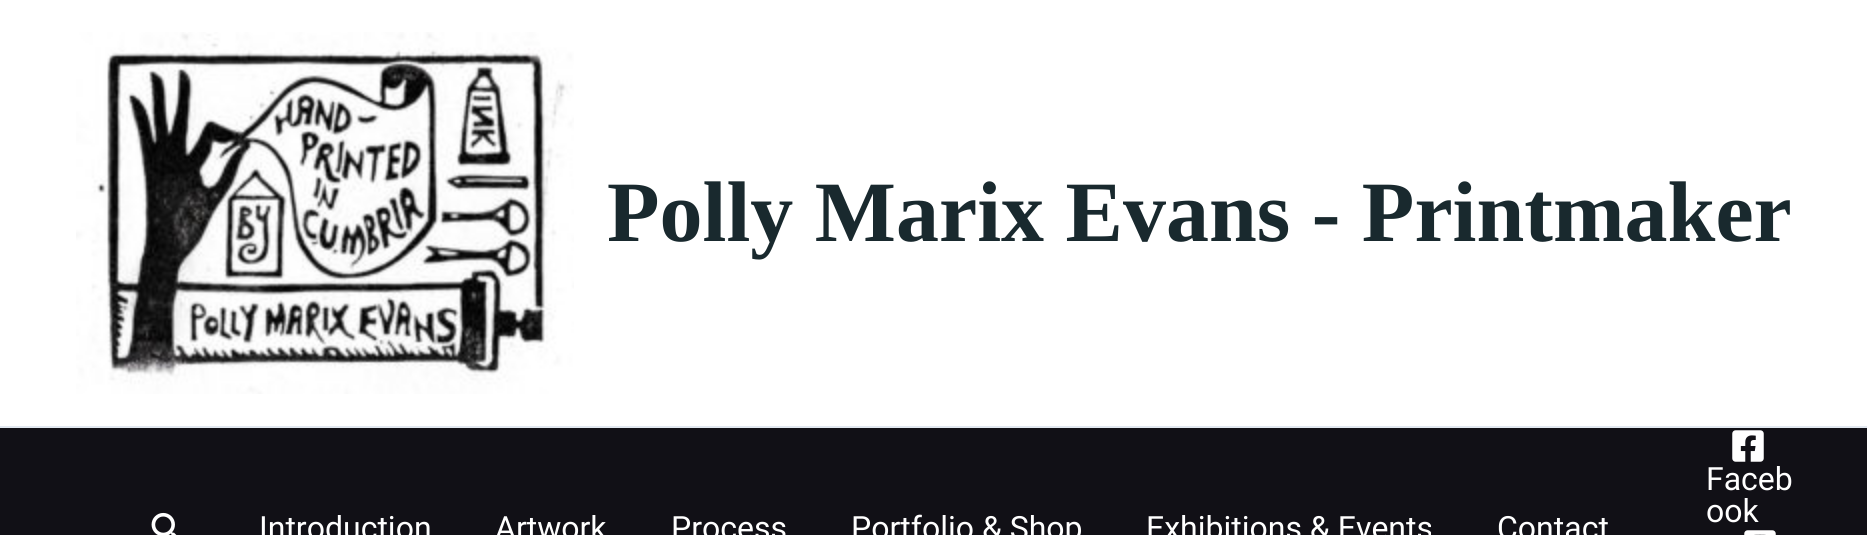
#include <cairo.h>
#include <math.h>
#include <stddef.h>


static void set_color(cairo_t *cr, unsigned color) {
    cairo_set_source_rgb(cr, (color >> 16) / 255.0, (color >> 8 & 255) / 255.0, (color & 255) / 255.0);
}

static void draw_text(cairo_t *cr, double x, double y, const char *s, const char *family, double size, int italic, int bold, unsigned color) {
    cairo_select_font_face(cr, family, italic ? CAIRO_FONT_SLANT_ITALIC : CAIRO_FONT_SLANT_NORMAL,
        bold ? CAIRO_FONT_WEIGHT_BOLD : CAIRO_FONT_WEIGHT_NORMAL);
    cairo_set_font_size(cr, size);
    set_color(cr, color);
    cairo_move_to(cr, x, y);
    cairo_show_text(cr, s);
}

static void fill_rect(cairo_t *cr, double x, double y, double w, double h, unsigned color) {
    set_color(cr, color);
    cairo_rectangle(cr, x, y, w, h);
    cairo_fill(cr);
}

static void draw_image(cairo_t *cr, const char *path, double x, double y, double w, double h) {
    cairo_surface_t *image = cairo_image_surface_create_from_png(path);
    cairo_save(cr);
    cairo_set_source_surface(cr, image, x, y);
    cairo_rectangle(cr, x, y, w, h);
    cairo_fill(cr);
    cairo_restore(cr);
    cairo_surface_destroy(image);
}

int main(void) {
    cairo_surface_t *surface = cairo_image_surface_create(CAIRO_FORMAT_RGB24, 1867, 535);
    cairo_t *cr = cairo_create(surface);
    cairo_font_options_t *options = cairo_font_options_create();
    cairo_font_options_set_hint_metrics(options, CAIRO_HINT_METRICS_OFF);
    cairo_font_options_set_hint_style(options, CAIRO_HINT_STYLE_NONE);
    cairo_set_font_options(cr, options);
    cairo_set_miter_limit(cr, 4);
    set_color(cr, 0xFFFFFF);
    cairo_paint(cr);
    fill_rect(cr, 0, 426, 1867, 2, 0xE2E8F0);
    draw_image(cr, "assets/img1.png", 76, 32, 498, 362);
    draw_text(cr, 607, 241, "Polly Marix Evans - Printmaker", "Liberation Serif", 86, 0, 1, 0x19292E);
    fill_rect(cr, 0, 428, 1867, 107, 0x111016);
    draw_image(cr, "assets/img2.png", 151, 512, 26, 23);
    draw_text(cr, 259, 539, "Introduction", "Roboto", 32, 0, 0, 0xFFFFFF);
    draw_text(cr, 495, 539, "Artwork", "Roboto", 32, 0, 0, 0xFFFFFF);
    draw_text(cr, 671, 539, "Process", "Roboto", 32, 0, 0, 0xFFFFFF);
    draw_text(cr, 851, 539, "Portfolio & Shop", "Roboto", 32, 0, 0, 0xFFFFFF);
    draw_text(cr, 1146, 539, "Exhibitions & Events", "Roboto", 32, 0, 0, 0xFFFFFF);
    draw_text(cr, 1497, 539, "Contact", "Roboto", 32, 0, 0, 0xFFFFFF);
    draw_image(cr, "assets/img3.png", 1732, 430, 32, 32);
    draw_text(cr, 1706, 490, "Faceb", "Roboto", 32, 0, 0, 0xFFFFFF);
    draw_text(cr, 1706, 522, "ook", "Roboto", 32, 0, 0, 0xFFFFFF);
    draw_image(cr, "assets/img4.png", 1744, 530, 32, 5);
    cairo_surface_write_to_png(surface, "output.png");
    cairo_font_options_destroy(options);
    cairo_destroy(cr);
    cairo_surface_destroy(surface);
    return 0;
}
